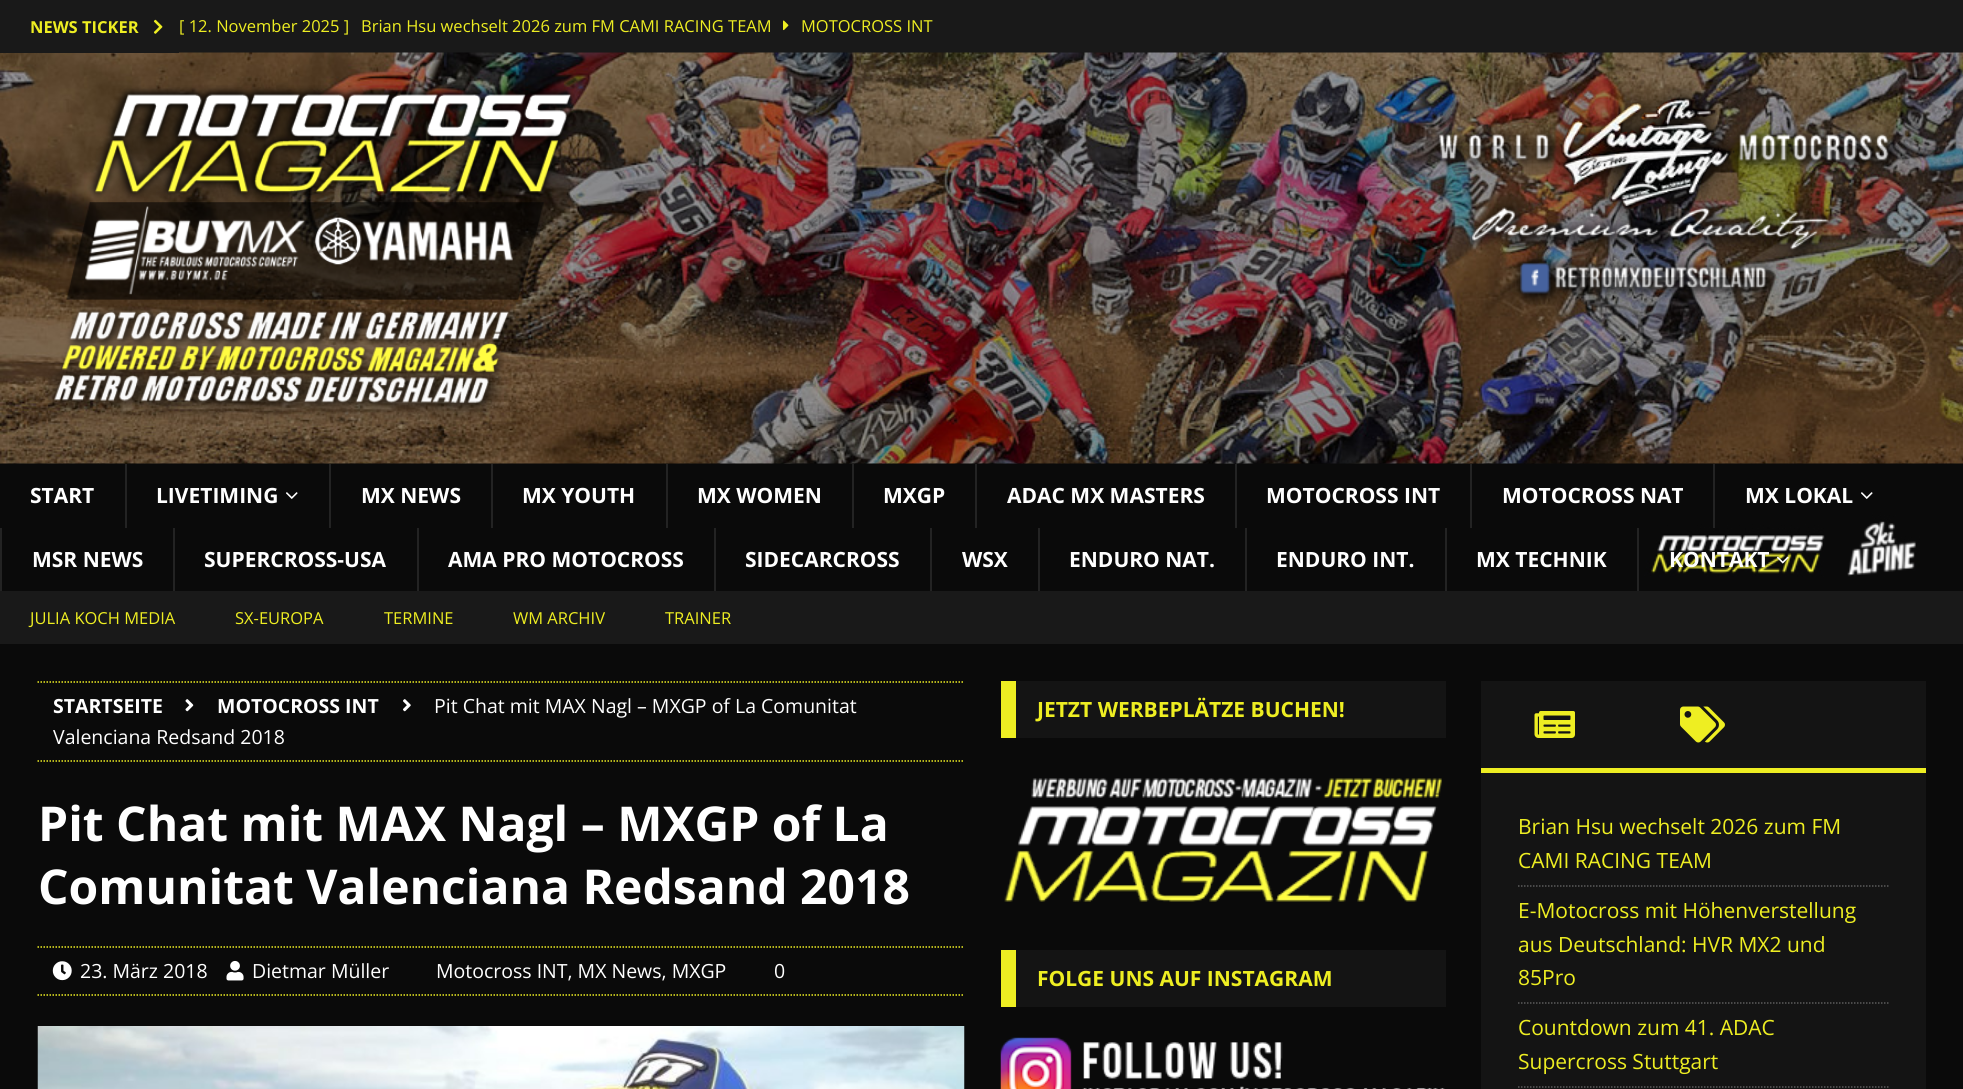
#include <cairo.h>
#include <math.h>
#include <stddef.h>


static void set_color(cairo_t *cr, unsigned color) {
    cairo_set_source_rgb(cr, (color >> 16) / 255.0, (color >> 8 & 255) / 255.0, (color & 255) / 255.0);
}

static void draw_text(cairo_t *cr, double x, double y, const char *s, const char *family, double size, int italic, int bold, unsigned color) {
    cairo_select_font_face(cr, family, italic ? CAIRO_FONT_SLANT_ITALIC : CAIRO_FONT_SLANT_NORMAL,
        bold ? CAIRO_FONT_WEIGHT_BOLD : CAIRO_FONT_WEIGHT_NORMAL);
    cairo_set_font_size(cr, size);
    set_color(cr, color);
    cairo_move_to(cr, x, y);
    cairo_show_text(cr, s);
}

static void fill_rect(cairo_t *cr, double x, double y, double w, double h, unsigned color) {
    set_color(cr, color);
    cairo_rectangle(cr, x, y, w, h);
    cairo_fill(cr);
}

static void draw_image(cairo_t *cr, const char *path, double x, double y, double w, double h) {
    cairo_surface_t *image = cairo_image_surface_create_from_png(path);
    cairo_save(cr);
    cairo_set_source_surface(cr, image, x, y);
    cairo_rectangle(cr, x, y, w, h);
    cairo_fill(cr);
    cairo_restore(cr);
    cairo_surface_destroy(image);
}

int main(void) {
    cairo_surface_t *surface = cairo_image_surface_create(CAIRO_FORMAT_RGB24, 1963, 1089);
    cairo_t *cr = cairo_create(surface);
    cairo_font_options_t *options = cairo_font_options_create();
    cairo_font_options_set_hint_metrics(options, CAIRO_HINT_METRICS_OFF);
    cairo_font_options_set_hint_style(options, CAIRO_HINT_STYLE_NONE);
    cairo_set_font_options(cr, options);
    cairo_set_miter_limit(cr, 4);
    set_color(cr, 0x0A0A0A);
    cairo_paint(cr);
    fill_rect(cr, 179, 0, 1784, 53, 0x191919);
    draw_image(cr, "assets/img3.png", 0, 52, 1963, 412);
    fill_rect(cr, 0, 0, 179, 53, 0x191919);
    draw_text(cr, 30, 33, "NEWS TICKER", "Open Sans", 16.5, 0, 1, 0xEEEE22);
    draw_image(cr, "assets/img1.png", 153, 19, 10, 15);
    draw_text(cr, 179, 32, "[ 12. November 2025 ]", "Open Sans", 16.5, 0, 0, 0xEEEE22);
    draw_text(cr, 361, 32, "Brian Hsu wechselt 2026 zum FM CAMI RACING TEAM", "Open Sans", 16.5, 0, 0, 0xEEEE22);
    draw_image(cr, "assets/img2.png", 783, 20, 6, 11);
    draw_text(cr, 801, 32, "MOTOCROSS INT", "Open Sans", 16.5, 0, 0, 0xEEEE22);
    draw_image(cr, "assets/img4.png", 45, 85, 530, 335);
    draw_image(cr, "assets/img5.png", 1435, 85, 466, 232);
    draw_image(cr, "assets/img6.png", 0, 463, 1963, 114);
    draw_text(cr, 30, 503, "START", "Open Sans", 21, 0, 1, 0xFFFFFF);
    fill_rect(cr, 125, 464, 2, 64, 0x232323);
    draw_text(cr, 156, 503, "LIVETIMING", "Open Sans", 21, 0, 1, 0xFFFFFF);
    draw_image(cr, "assets/img7.png", 286, 492, 12, 7);
    fill_rect(cr, 329, 464, 2, 64, 0x232323);
    draw_text(cr, 361, 503, "MX NEWS", "Open Sans", 21, 0, 1, 0xFFFFFF);
    fill_rect(cr, 491, 464, 2, 64, 0x232323);
    draw_text(cr, 522, 503, "MX YOUTH", "Open Sans", 21, 0, 1, 0xFFFFFF);
    fill_rect(cr, 666, 464, 2, 64, 0x232323);
    draw_text(cr, 697, 503, "MX WOMEN", "Open Sans", 21, 0, 1, 0xFFFFFF);
    fill_rect(cr, 852, 464, 2, 64, 0x232323);
    draw_text(cr, 883, 503, "MXGP", "Open Sans", 21, 0, 1, 0xFFFFFF);
    fill_rect(cr, 975, 464, 2, 64, 0x232323);
    draw_text(cr, 1007, 503, "ADAC MX MASTERS", "Open Sans", 21, 0, 1, 0xFFFFFF);
    fill_rect(cr, 1235, 464, 2, 64, 0x232323);
    draw_text(cr, 1266, 503, "MOTOCROSS INT", "Open Sans", 21, 0, 1, 0xFFFFFF);
    fill_rect(cr, 1470, 464, 2, 64, 0x232323);
    draw_text(cr, 1502, 503, "MOTOCROSS NAT", "Open Sans", 21, 0, 1, 0xFFFFFF);
    fill_rect(cr, 1713, 464, 2, 64, 0x232323);
    draw_text(cr, 1745, 503, "MX LOKAL", "Open Sans", 21, 0, 1, 0xFFFFFF);
    draw_image(cr, "assets/img7.png", 1861, 492, 12, 7);
    fill_rect(cr, 0, 528, 2, 63, 0x232323);
    draw_text(cr, 32, 567, "MSR NEWS", "Open Sans", 21, 0, 1, 0xFFFFFF);
    fill_rect(cr, 173, 528, 2, 63, 0x232323);
    draw_text(cr, 204, 567, "SUPERCROSS-USA", "Open Sans", 21, 0, 1, 0xFFFFFF);
    fill_rect(cr, 417, 528, 2, 63, 0x232323);
    draw_text(cr, 448, 567, "AMA PRO MOTOCROSS", "Open Sans", 21, 0, 1, 0xFFFFFF);
    fill_rect(cr, 714, 528, 2, 63, 0x232323);
    draw_text(cr, 745, 567, "SIDECARCROSS", "Open Sans", 21, 0, 1, 0xFFFFFF);
    fill_rect(cr, 930, 528, 2, 63, 0x232323);
    draw_text(cr, 962, 567, "WSX", "Open Sans", 21, 0, 1, 0xFFFFFF);
    fill_rect(cr, 1038, 528, 2, 63, 0x232323);
    draw_text(cr, 1069, 567, "ENDURO NAT.", "Open Sans", 21, 0, 1, 0xFFFFFF);
    fill_rect(cr, 1245, 528, 2, 63, 0x232323);
    draw_text(cr, 1276, 567, "ENDURO INT.", "Open Sans", 21, 0, 1, 0xFFFFFF);
    fill_rect(cr, 1445, 528, 2, 63, 0x232323);
    draw_text(cr, 1476, 567, "MX TECHNIK", "Open Sans", 21, 0, 1, 0xFFFFFF);
    fill_rect(cr, 1637, 528, 2, 63, 0x232323);
    draw_text(cr, 1669, 567, "KONTAKT", "Open Sans", 21, 0, 1, 0xFFFFFF);
    draw_image(cr, "assets/img8.png", 1776, 556, 13, 8);
    fill_rect(cr, 0, 591, 1963, 53, 0x191919);
    draw_text(cr, 30, 624, "JULIA KOCH MEDIA", "Open Sans", 16.5, 0, 0, 0xEEEE22);
    draw_text(cr, 235, 624, "SX-EUROPA", "Open Sans", 16.5, 0, 0, 0xEEEE22);
    draw_text(cr, 384, 624, "TERMINE", "Open Sans", 16.5, 0, 0, 0xEEEE22);
    draw_text(cr, 513, 624, "WM ARCHIV", "Open Sans", 16.5, 0, 0, 0xEEEE22);
    draw_text(cr, 665, 624, "TRAINER", "Open Sans", 16.5, 0, 0, 0xEEEE22);
    cairo_new_path(cr);
    cairo_move_to(cr, 37.5, 682);
    cairo_line_to(cr, 964.5, 682);
    cairo_set_line_width(cr, 1.5);
    cairo_set_dash(cr, (double[]){1.5, 1.5}, 2, 0);
    cairo_stroke(cr);
    cairo_new_path(cr);
    cairo_move_to(cr, 37.5, 761);
    cairo_line_to(cr, 964.5, 761);
    cairo_stroke(cr);
    draw_text(cr, 53, 713, "STARTSEITE", "Open Sans", 19.5, 0, 1, 0xFFFFFF);
    draw_image(cr, "assets/img9.png", 185, 699, 9, 13);
    draw_text(cr, 217, 713, "MOTOCROSS INT", "Open Sans", 19.5, 0, 1, 0xFFFFFF);
    draw_image(cr, "assets/img10.png", 403, 699, 8, 13);
    draw_text(cr, 434, 713, "Pit Chat mit MAX Nagl – MXGP of La Comunitat", "Open Sans", 19.5, 0, 0, 0xFFFFFF);
    draw_text(cr, 53, 744, "Valenciana Redsand 2018", "Open Sans", 19.5, 0, 0, 0xFFFFFF);
    draw_text(cr, 38, 841, "Pit Chat mit MAX Nagl – MXGP of La", "Open Sans", 48, 0, 1, 0xFFFFFF);
    draw_text(cr, 38, 904, "Comunitat Valenciana Redsand 2018", "Open Sans", 48, 0, 1, 0xFFFFFF);
    cairo_new_path(cr);
    cairo_move_to(cr, 37.5, 947);
    cairo_line_to(cr, 964.5, 947);
    set_color(cr, 0xEEEE22);
    cairo_stroke(cr);
    cairo_new_path(cr);
    cairo_move_to(cr, 37.5, 995);
    cairo_line_to(cr, 964.5, 995);
    cairo_stroke(cr);
    draw_image(cr, "assets/img11.png", 52, 961, 20, 20);
    draw_text(cr, 80, 978, "23. März 2018", "Open Sans", 19.5, 0, 0, 0xFFFFFF);
    draw_image(cr, "assets/img12.png", 226, 960, 18, 21);
    draw_text(cr, 252, 978, "Dietmar Müller", "Open Sans", 19.5, 0, 0, 0xFFFFFF);
    draw_text(cr, 436, 978, "Motocross INT, MX News, MXGP", "Open Sans", 19.5, 0, 0, 0xFFFFFF);
    draw_text(cr, 774, 978, "0", "Open Sans", 19.5, 0, 0, 0xFFFFFF);
    draw_image(cr, "assets/img13.png", 37, 1026, 928, 63);
    fill_rect(cr, 1016, 681, 430, 57, 0x141414);
    fill_rect(cr, 1001, 681, 15, 57, 0xEEEE22);
    draw_text(cr, 1037, 717, "JETZT WERBEPLÄTZE BUCHEN!", "Open Sans", 21, 0, 1, 0xEEEE22);
    draw_image(cr, "assets/img14.png", 1004, 778, 438, 124);
    fill_rect(cr, 1016, 950, 430, 57, 0x141414);
    fill_rect(cr, 1001, 950, 15, 57, 0xEEEE22);
    draw_text(cr, 1037, 986, "FOLGE UNS AUF INSTAGRAM", "Open Sans", 21, 0, 1, 0xEEEE22);
    draw_image(cr, "assets/img15.png", 1000, 1037, 445, 52);
    fill_rect(cr, 1481, 768, 445, 5, 0xEEEE22);
    fill_rect(cr, 1481, 681, 445, 87, 0x141414);
    draw_image(cr, "assets/img16.png", 1534, 711, 41, 27);
    draw_image(cr, "assets/img17.png", 1680, 706, 45, 37);
    fill_rect(cr, 1481, 773, 445, 316, 0x141414);
    cairo_new_path(cr);
    cairo_move_to(cr, 1518, 886);
    cairo_line_to(cr, 1888.5, 886);
    set_color(cr, 0x5B5B5B);
    cairo_stroke(cr);
    draw_text(cr, 1518, 834, "Brian Hsu wechselt 2026 zum FM", "Open Sans", 21, 0, 0, 0xEEEE22);
    draw_text(cr, 1518, 868, "CAMI RACING TEAM", "Open Sans", 21, 0, 0, 0xEEEE22);
    cairo_new_path(cr);
    cairo_move_to(cr, 1518, 1003);
    cairo_line_to(cr, 1888.5, 1003);
    set_color(cr, 0x5B5B5B);
    cairo_stroke(cr);
    draw_text(cr, 1518, 918, "E-Motocross mit Höhenverstellung", "Open Sans", 21, 0, 0, 0xEEEE22);
    draw_text(cr, 1518, 952, "aus Deutschland: HVR MX2 und", "Open Sans", 21, 0, 0, 0xEEEE22);
    draw_text(cr, 1518, 985, "85Pro", "Open Sans", 21, 0, 0, 0xEEEE22);
    cairo_new_path(cr);
    cairo_move_to(cr, 1518, 1087);
    cairo_line_to(cr, 1888.5, 1087);
    set_color(cr, 0x5B5B5B);
    cairo_stroke(cr);
    draw_text(cr, 1518, 1035, "Countdown zum 41. ADAC", "Open Sans", 21, 0, 0, 0xEEEE22);
    draw_text(cr, 1518, 1069, "Supercross Stuttgart", "Open Sans", 21, 0, 0, 0xEEEE22);
    cairo_surface_write_to_png(surface, "output.png");
    cairo_font_options_destroy(options);
    cairo_destroy(cr);
    cairo_surface_destroy(surface);
    return 0;
}
